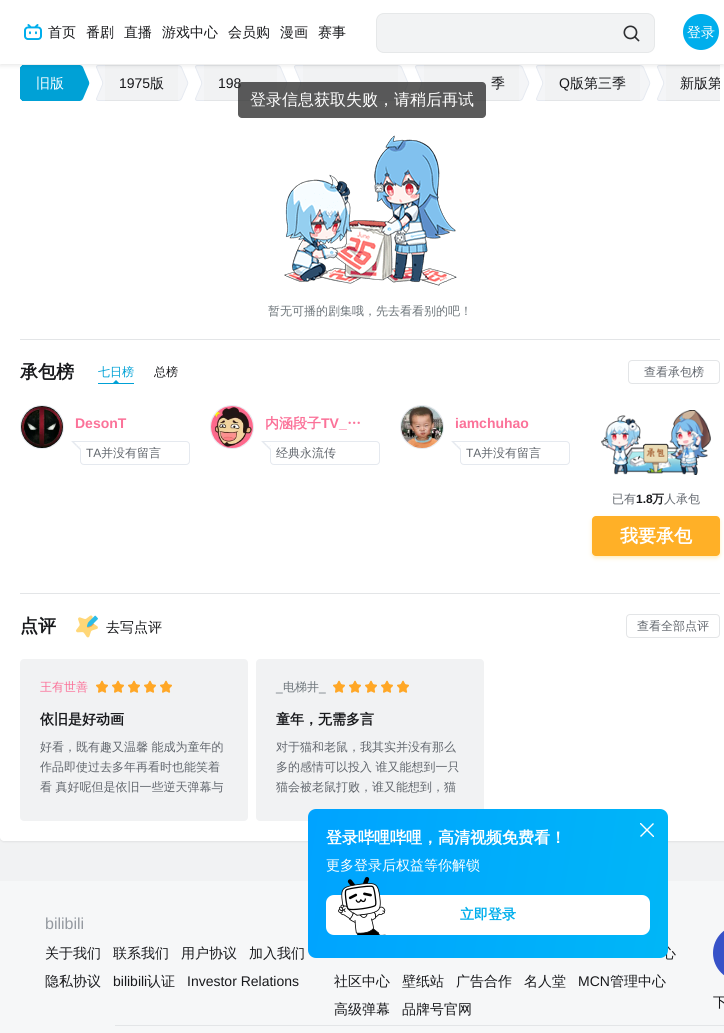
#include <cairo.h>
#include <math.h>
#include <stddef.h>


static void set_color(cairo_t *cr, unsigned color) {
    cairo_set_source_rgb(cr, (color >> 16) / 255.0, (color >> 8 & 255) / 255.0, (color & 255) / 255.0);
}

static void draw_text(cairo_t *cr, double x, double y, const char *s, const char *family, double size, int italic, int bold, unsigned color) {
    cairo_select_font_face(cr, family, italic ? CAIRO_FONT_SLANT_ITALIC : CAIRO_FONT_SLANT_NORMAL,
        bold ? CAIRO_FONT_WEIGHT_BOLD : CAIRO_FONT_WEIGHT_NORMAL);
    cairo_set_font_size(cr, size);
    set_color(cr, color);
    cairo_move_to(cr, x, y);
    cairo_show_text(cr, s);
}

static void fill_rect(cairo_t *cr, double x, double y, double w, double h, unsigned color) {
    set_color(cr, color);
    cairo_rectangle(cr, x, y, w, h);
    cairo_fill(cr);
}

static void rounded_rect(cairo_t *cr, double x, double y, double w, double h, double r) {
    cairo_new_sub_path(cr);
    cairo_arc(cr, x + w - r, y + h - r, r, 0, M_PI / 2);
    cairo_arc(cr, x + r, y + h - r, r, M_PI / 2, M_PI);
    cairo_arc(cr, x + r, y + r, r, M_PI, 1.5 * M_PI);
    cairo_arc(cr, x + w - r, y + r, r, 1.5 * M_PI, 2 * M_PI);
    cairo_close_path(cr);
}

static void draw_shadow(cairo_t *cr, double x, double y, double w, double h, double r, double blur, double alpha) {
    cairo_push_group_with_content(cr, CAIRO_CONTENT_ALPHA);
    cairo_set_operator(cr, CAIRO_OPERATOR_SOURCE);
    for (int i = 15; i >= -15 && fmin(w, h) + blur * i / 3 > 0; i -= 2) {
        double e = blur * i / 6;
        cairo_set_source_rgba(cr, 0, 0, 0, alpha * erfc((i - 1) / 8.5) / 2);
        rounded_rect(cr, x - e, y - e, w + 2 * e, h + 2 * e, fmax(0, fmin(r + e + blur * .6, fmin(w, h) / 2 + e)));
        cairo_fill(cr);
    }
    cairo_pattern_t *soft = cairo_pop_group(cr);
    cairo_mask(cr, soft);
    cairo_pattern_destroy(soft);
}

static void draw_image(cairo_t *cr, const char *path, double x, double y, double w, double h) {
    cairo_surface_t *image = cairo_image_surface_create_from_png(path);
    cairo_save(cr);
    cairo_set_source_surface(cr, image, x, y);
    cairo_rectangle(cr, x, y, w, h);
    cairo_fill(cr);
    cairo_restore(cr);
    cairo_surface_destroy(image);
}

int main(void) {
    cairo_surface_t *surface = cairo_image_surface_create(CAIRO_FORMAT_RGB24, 724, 1033);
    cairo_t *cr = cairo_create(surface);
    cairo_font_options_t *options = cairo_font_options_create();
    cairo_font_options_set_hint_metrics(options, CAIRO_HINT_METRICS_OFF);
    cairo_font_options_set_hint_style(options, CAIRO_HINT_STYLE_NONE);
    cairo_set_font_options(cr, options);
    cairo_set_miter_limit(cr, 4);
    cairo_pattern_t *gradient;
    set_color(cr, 0xF1F2F3);
    cairo_paint(cr);
    set_color(cr, 0x000000);
    draw_shadow(cr, 0, 46, 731, 796, 4, 1, 0.07);
    set_color(cr, 0xFFFFFF);
    rounded_rect(cr, 0, 45, 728, 796, 4);
    cairo_fill(cr);
    set_color(cr, 0x00A1D6);
    cairo_new_path(cr);
    cairo_move_to(cr, 24, 65);
    cairo_line_to(cr, 80, 65);
    cairo_line_to(cr, 80, 101);
    cairo_line_to(cr, 24, 101);
    cairo_curve_to(cr, 22, 101, 20, 99, 20, 97);
    cairo_line_to(cr, 20, 69);
    cairo_curve_to(cr, 20, 67, 22, 65, 24, 65);
    cairo_close_path(cr);
    cairo_fill(cr);
    fill_rect(cr, 22, 65, 2, 1, 0x00A1D6);
    fill_rect(cr, 22, 100, 2, 1, 0x00A1D6);
    cairo_new_path(cr);
    cairo_move_to(cr, 24, 65);
    cairo_line_to(cr, 30, 65);
    cairo_line_to(cr, 30, 101);
    cairo_line_to(cr, 24, 101);
    cairo_curve_to(cr, 22, 101, 20, 99, 20, 97);
    cairo_line_to(cr, 20, 69);
    cairo_curve_to(cr, 20, 67, 22, 65, 24, 65);
    cairo_close_path(cr);
    cairo_fill(cr);
    cairo_set_fill_rule(cr, CAIRO_FILL_RULE_EVEN_ODD);
    cairo_new_path(cr);
    cairo_move_to(cr, 24, 65);
    cairo_line_to(cr, 30, 65);
    cairo_line_to(cr, 30, 101);
    cairo_line_to(cr, 24, 101);
    cairo_curve_to(cr, 22, 101, 20, 99, 20, 97);
    cairo_line_to(cr, 20, 69);
    cairo_curve_to(cr, 20, 67, 22, 65, 24, 65);
    cairo_close_path(cr);
    cairo_move_to(cr, 24, 66);
    cairo_line_to(cr, 30, 66);
    cairo_line_to(cr, 30, 100);
    cairo_line_to(cr, 24, 100);
    cairo_curve_to(cr, 22.5, 100, 21, 98.5, 21, 97);
    cairo_line_to(cr, 21, 69);
    cairo_curve_to(cr, 21, 67.5, 22.5, 66, 24, 66);
    cairo_close_path(cr);
    cairo_fill(cr);
    draw_image(cr, "assets/img3.png", 80, 65, 10, 36);
    fill_rect(cr, 105, 66, 73, 34, 0xF1F2F3);
    fill_rect(cr, 104, 65, 75, 1, 0xE3E5E7);
    fill_rect(cr, 104, 100, 75, 1, 0xE3E5E7);
    draw_image(cr, "assets/img4.png", 96, 65, 9, 36);
    fill_rect(cr, 178, 65, 1, 36, 0xFFFFFF);
    draw_image(cr, "assets/img5.png", 178, 65, 11, 36);
    fill_rect(cr, 204, 66, 73, 34, 0xF1F2F3);
    fill_rect(cr, 203, 65, 75, 1, 0xE3E5E7);
    fill_rect(cr, 203, 100, 75, 1, 0xE3E5E7);
    draw_image(cr, "assets/img4.png", 195, 65, 9, 36);
    fill_rect(cr, 277, 65, 1, 36, 0xFFFFFF);
    draw_image(cr, "assets/img5.png", 277, 65, 11, 36);
    fill_rect(cr, 303, 66, 95, 34, 0xF1F2F3);
    fill_rect(cr, 302, 65, 97, 1, 0xE3E5E7);
    fill_rect(cr, 302, 100, 97, 1, 0xE3E5E7);
    draw_image(cr, "assets/img4.png", 294, 65, 9, 36);
    fill_rect(cr, 398, 65, 1, 36, 0xFFFFFF);
    draw_image(cr, "assets/img5.png", 398, 65, 11, 36);
    fill_rect(cr, 424, 66, 95, 34, 0xF1F2F3);
    fill_rect(cr, 423, 65, 97, 1, 0xE3E5E7);
    fill_rect(cr, 423, 100, 97, 1, 0xE3E5E7);
    draw_image(cr, "assets/img4.png", 415, 65, 9, 36);
    fill_rect(cr, 519, 65, 1, 36, 0xFFFFFF);
    draw_image(cr, "assets/img5.png", 519, 65, 11, 36);
    fill_rect(cr, 545, 66, 95, 34, 0xF1F2F3);
    fill_rect(cr, 544, 65, 97, 1, 0xE3E5E7);
    fill_rect(cr, 544, 100, 97, 1, 0xE3E5E7);
    draw_image(cr, "assets/img4.png", 536, 65, 9, 36);
    fill_rect(cr, 640, 65, 1, 36, 0xFFFFFF);
    draw_image(cr, "assets/img5.png", 640, 65, 11, 36);
    fill_rect(cr, 666, 66, 54, 34, 0xF1F2F3);
    fill_rect(cr, 665, 65, 55, 1, 0xE3E5E7);
    fill_rect(cr, 665, 100, 55, 1, 0xE3E5E7);
    draw_image(cr, "assets/img4.png", 657, 65, 9, 36);
    set_color(cr, 0x000000);
    draw_shadow(cr, 0, 2, 724, 64, 0, 2, 0.08);
    fill_rect(cr, 0, 0, 724, 64, 0xFFFFFF);
    draw_image(cr, "assets/img1.png", 24, 24, 18, 16);
    draw_text(cr, 48, 37, "首页", "WenQuanYi Zen Hei Medium", 14, 0, 0, 0x18191C);
    draw_text(cr, 86, 37, "番剧", "WenQuanYi Zen Hei Medium", 14, 0, 0, 0x18191C);
    draw_text(cr, 124, 37, "直播", "WenQuanYi Zen Hei Medium", 14, 0, 0, 0x18191C);
    draw_text(cr, 162, 37, "游戏中心", "WenQuanYi Zen Hei Medium", 14, 0, 0, 0x18191C);
    draw_text(cr, 228, 37, "会员购", "WenQuanYi Zen Hei Medium", 14, 0, 0, 0x18191C);
    draw_text(cr, 280, 37, "漫画", "WenQuanYi Zen Hei Medium", 14, 0, 0, 0x18191C);
    draw_text(cr, 318, 37, "赛事", "WenQuanYi Zen Hei Medium", 14, 0, 0, 0x18191C);
    set_color(cr, 0xF2F3F4);
    rounded_rect(cr, 376.5, 13.5, 278, 39, 7.5);
    cairo_fill_preserve(cr);
    set_color(cr, 0xE6E8E9);
    cairo_set_line_width(cr, 1);
    cairo_stroke(cr);
    draw_image(cr, "assets/img2.png", 623, 25, 17, 17);
    set_color(cr, 0x00AEEC);
    cairo_arc(cr, 701, 32, 18, 0, 2 * M_PI);
    cairo_fill(cr);
    draw_text(cr, 687, 37, "登录", "WenQuanYi Zen Hei Medium", 14, 0, 0, 0xFFFFFF);
    draw_text(cr, 36, 88, "旧版", "WenQuanYi Zen Hei Medium", 14, 0, 0, 0xFFFFFF);
    draw_text(cr, 119, 88, "1975", "Liberation Sans", 14, 0, 0, 0x18191C);
    draw_text(cr, 150, 88, "版", "WenQuanYi Zen Hei Medium", 14, 0, 0, 0x18191C);
    draw_text(cr, 218, 88, "198", "Liberation Sans", 14, 0, 0, 0x18191C);
    draw_text(cr, 491, 88, "季", "WenQuanYi Zen Hei Medium", 14, 0, 0, 0x18191C);
    draw_text(cr, 559, 88, "Q", "Liberation Sans", 14, 0, 0, 0x18191C);
    draw_text(cr, 570, 88, "版第三季", "WenQuanYi Zen Hei Medium", 14, 0, 0, 0x18191C);
    cairo_save(cr);
    cairo_set_fill_rule(cr, CAIRO_FILL_RULE_WINDING);
    cairo_rectangle(cr, 20, 65, 700, 36);
    cairo_clip(cr);
    draw_text(cr, 680, 88, "新版第", "WenQuanYi Zen Hei Medium", 14, 0, 0, 0x18191C);
    cairo_restore(cr);
    draw_image(cr, "assets/img6.png", 284, 135, 173, 151);
    draw_text(cr, 268, 315, "暂无可播的剧集哦，先去看看别的吧！", "WenQuanYi Zen Hei Medium", 12, 0, 0, 0x6D757A);
    fill_rect(cr, 20, 339, 700, 1, 0xE3E5E7);
    draw_text(cr, 20, 378, "承包榜", "WenQuanYi Zen Hei", 18, 0, 1, 0x18191C);
    draw_text(cr, 98, 376, "七日榜", "WenQuanYi Zen Hei Medium", 12, 0, 0, 0x00A1D6);
    draw_text(cr, 154, 376, "总榜", "WenQuanYi Zen Hei Medium", 12, 0, 0, 0x18191C);
    fill_rect(cr, 98, 383, 36, 1, 0x00A1D6);
    cairo_set_fill_rule(cr, CAIRO_FILL_RULE_WINDING);
    cairo_new_path(cr);
    cairo_move_to(cr, 119, 383);
    cairo_line_to(cr, 113, 383);
    cairo_line_to(cr, 116, 380);
    cairo_close_path(cr);
    cairo_fill(cr);
    rounded_rect(cr, 628.5, 360.5, 91, 23, 3.5);
    set_color(cr, 0xE3E5E7);
    cairo_stroke(cr);
    draw_text(cr, 644, 376, "查看承包榜", "WenQuanYi Zen Hei Medium", 12, 0, 0, 0x61666D);
    cairo_new_path(cr);
    cairo_arc(cr, 42, 427, 21.5, 0, 2 * M_PI);
    set_color(cr, 0xE5E9EF);
    cairo_stroke(cr);
    draw_image(cr, "assets/img7.png", 21, 406, 42, 42);
    draw_text(cr, 75, 428, "DesonT", "Liberation Sans", 14, 0, 1, 0xFB7299);
    cairo_new_path(cr);
    cairo_move_to(cr, 80.5, 441.5);
    cairo_line_to(cr, 186, 441.5);
    cairo_curve_to(cr, 188, 441.5, 189.5, 443, 189.5, 445);
    cairo_line_to(cr, 189.5, 461);
    cairo_curve_to(cr, 189.5, 463, 188, 464.5, 186, 464.5);
    cairo_line_to(cr, 84, 464.5);
    cairo_curve_to(cr, 82, 464.5, 80.5, 463, 80.5, 461);
    cairo_close_path(cr);
    set_color(cr, 0xE5E9EF);
    cairo_stroke(cr);
    cairo_new_path(cr);
    cairo_move_to(cr, 71, 441);
    cairo_line_to(cr, 81, 441);
    cairo_line_to(cr, 76, 446);
    cairo_close_path(cr);
    cairo_fill(cr);
    cairo_new_path(cr);
    cairo_move_to(cr, 81, 441);
    cairo_line_to(cr, 81, 451);
    cairo_line_to(cr, 76, 446);
    cairo_close_path(cr);
    cairo_fill(cr);
    set_color(cr, 0xFFFFFF);
    cairo_new_path(cr);
    cairo_move_to(cr, 74, 442);
    cairo_line_to(cr, 84, 442);
    cairo_line_to(cr, 79, 447);
    cairo_close_path(cr);
    cairo_fill(cr);
    cairo_new_path(cr);
    cairo_move_to(cr, 84, 442);
    cairo_line_to(cr, 84, 452);
    cairo_line_to(cr, 79, 447);
    cairo_close_path(cr);
    cairo_fill(cr);
    draw_text(cr, 86, 457, "TA", "Liberation Sans", 12, 0, 0, 0x61666D);
    draw_text(cr, 101, 457, "并没有留言", "WenQuanYi Zen Hei Medium", 12, 0, 0, 0x61666D);
    cairo_new_path(cr);
    cairo_arc(cr, 232, 427, 21.5, 0, 2 * M_PI);
    set_color(cr, 0xE5E9EF);
    cairo_stroke(cr);
    draw_image(cr, "assets/img8.png", 211, 406, 42, 42);
    draw_text(cr, 265, 428, "内涵段子", "WenQuanYi Zen Hei", 14, 0, 1, 0xFB7299);
    draw_text(cr, 321, 428, "TV_", "Liberation Sans", 14, 0, 1, 0xFB7299);
    draw_text(cr, 347, 428, "…", "WenQuanYi Zen Hei", 14, 0, 1, 0xFB7299);
    cairo_new_path(cr);
    cairo_move_to(cr, 270.5, 441.5);
    cairo_line_to(cr, 376, 441.5);
    cairo_curve_to(cr, 378, 441.5, 379.5, 443, 379.5, 445);
    cairo_line_to(cr, 379.5, 461);
    cairo_curve_to(cr, 379.5, 463, 378, 464.5, 376, 464.5);
    cairo_line_to(cr, 274, 464.5);
    cairo_curve_to(cr, 272, 464.5, 270.5, 463, 270.5, 461);
    cairo_close_path(cr);
    set_color(cr, 0xE5E9EF);
    cairo_stroke(cr);
    cairo_new_path(cr);
    cairo_move_to(cr, 261, 441);
    cairo_line_to(cr, 271, 441);
    cairo_line_to(cr, 266, 446);
    cairo_close_path(cr);
    cairo_fill(cr);
    cairo_new_path(cr);
    cairo_move_to(cr, 271, 441);
    cairo_line_to(cr, 271, 451);
    cairo_line_to(cr, 266, 446);
    cairo_close_path(cr);
    cairo_fill(cr);
    set_color(cr, 0xFFFFFF);
    cairo_new_path(cr);
    cairo_move_to(cr, 264, 442);
    cairo_line_to(cr, 274, 442);
    cairo_line_to(cr, 269, 447);
    cairo_close_path(cr);
    cairo_fill(cr);
    cairo_new_path(cr);
    cairo_move_to(cr, 274, 442);
    cairo_line_to(cr, 274, 452);
    cairo_line_to(cr, 269, 447);
    cairo_close_path(cr);
    cairo_fill(cr);
    draw_text(cr, 276, 457, "经典永流传", "WenQuanYi Zen Hei Medium", 12, 0, 0, 0x61666D);
    cairo_new_path(cr);
    cairo_arc(cr, 422, 427, 21.5, 0, 2 * M_PI);
    set_color(cr, 0xE5E9EF);
    cairo_stroke(cr);
    draw_image(cr, "assets/img9.png", 401, 406, 42, 42);
    draw_text(cr, 455, 428, "iamchuhao", "Liberation Sans", 14, 0, 1, 0xFB7299);
    cairo_new_path(cr);
    cairo_move_to(cr, 460.5, 441.5);
    cairo_line_to(cr, 566, 441.5);
    cairo_curve_to(cr, 568, 441.5, 569.5, 443, 569.5, 445);
    cairo_line_to(cr, 569.5, 461);
    cairo_curve_to(cr, 569.5, 463, 568, 464.5, 566, 464.5);
    cairo_line_to(cr, 464, 464.5);
    cairo_curve_to(cr, 462, 464.5, 460.5, 463, 460.5, 461);
    cairo_close_path(cr);
    set_color(cr, 0xE5E9EF);
    cairo_stroke(cr);
    cairo_new_path(cr);
    cairo_move_to(cr, 451, 441);
    cairo_line_to(cr, 461, 441);
    cairo_line_to(cr, 456, 446);
    cairo_close_path(cr);
    cairo_fill(cr);
    cairo_new_path(cr);
    cairo_move_to(cr, 461, 441);
    cairo_line_to(cr, 461, 451);
    cairo_line_to(cr, 456, 446);
    cairo_close_path(cr);
    cairo_fill(cr);
    set_color(cr, 0xFFFFFF);
    cairo_new_path(cr);
    cairo_move_to(cr, 454, 442);
    cairo_line_to(cr, 464, 442);
    cairo_line_to(cr, 459, 447);
    cairo_close_path(cr);
    cairo_fill(cr);
    cairo_new_path(cr);
    cairo_move_to(cr, 464, 442);
    cairo_line_to(cr, 464, 452);
    cairo_line_to(cr, 459, 447);
    cairo_close_path(cr);
    cairo_fill(cr);
    draw_text(cr, 466, 457, "TA", "Liberation Sans", 12, 0, 0, 0x61666D);
    draw_text(cr, 481, 457, "并没有留言", "WenQuanYi Zen Hei Medium", 12, 0, 0, 0x61666D);
    draw_image(cr, "assets/img10.png", 601, 410, 110, 65);
    draw_text(cr, 612, 503, "已有", "WenQuanYi Zen Hei Medium", 12, 0, 0, 0x61666D);
    draw_text(cr, 636, 503, "1.8", "Liberation Sans", 12, 0, 1, 0x18191C);
    draw_text(cr, 652, 503, "万", "WenQuanYi Zen Hei", 12, 0, 1, 0x18191C);
    draw_text(cr, 664, 503, "人承包", "WenQuanYi Zen Hei Medium", 12, 0, 0, 0x61666D);
    set_color(cr, 0xFFDC7C);
    draw_shadow(cr, 592, 518, 128, 40, 4, 2, 0.5);
    set_color(cr, 0xFFB027);
    rounded_rect(cr, 592, 516, 128, 40, 4);
    cairo_fill(cr);
    draw_text(cr, 620, 542, "我要承包", "WenQuanYi Zen Hei", 18, 0, 1, 0xFFFFFF);
    fill_rect(cr, 20, 593, 700, 1, 0xE3E5E7);
    draw_text(cr, 20, 632, "点评", "WenQuanYi Zen Hei", 18, 0, 1, 0x18191C);
    draw_image(cr, "assets/img11.png", 76, 615, 22, 23);
    draw_image(cr, "assets/img13.png", 87, 623, 7, 5);
    draw_image(cr, "assets/img12.png", 86, 615, 12, 12);
    draw_text(cr, 106, 632, "去写点评", "WenQuanYi Zen Hei Medium", 14, 0, 0, 0x18191C);
    rounded_rect(cr, 626.5, 614.5, 93, 23, 3.5);
    set_color(cr, 0xE3E5E7);
    cairo_stroke(cr);
    draw_text(cr, 637, 630, "查看全部点评", "WenQuanYi Zen Hei Medium", 12, 0, 0, 0x61666D);
    set_color(cr, 0xF1F2F3);
    rounded_rect(cr, 20, 659, 228, 162, 4);
    cairo_fill(cr);
    draw_text(cr, 40, 691, "王有世善", "WenQuanYi Zen Hei Medium", 12, 0, 0, 0xFB7299);
    draw_image(cr, "assets/img14.png", 96, 680, 12, 13);
    draw_image(cr, "assets/img14.png", 112, 680, 12, 13);
    draw_image(cr, "assets/img14.png", 128, 680, 12, 13);
    draw_image(cr, "assets/img14.png", 144, 680, 12, 13);
    draw_image(cr, "assets/img14.png", 160, 680, 12, 13);
    draw_text(cr, 40, 724, "依旧是好动画", "WenQuanYi Zen Hei", 14, 0, 1, 0x18191C);
    draw_text(cr, 40, 751, "好看，既有趣又温馨 能成为童年的", "WenQuanYi Zen Hei Medium", 12, 0, 0, 0x61666D);
    draw_text(cr, 40, 771, "作品即使过去多年再看时也能笑着", "WenQuanYi Zen Hei Medium", 12, 0, 0, 0x61666D);
    draw_text(cr, 40, 791, "看 真好呢但是依旧一些逆天弹幕与", "WenQuanYi Zen Hei Medium", 12, 0, 0, 0x61666D);
    set_color(cr, 0xF1F2F3);
    rounded_rect(cr, 256, 659, 228, 162, 4);
    cairo_fill(cr);
    draw_text(cr, 276, 691, "_", "Liberation Sans", 12, 0, 0, 0x6D757A);
    draw_text(cr, 283, 691, "电梯井", "WenQuanYi Zen Hei Medium", 12, 0, 0, 0x6D757A);
    draw_text(cr, 319, 691, "_", "Liberation Sans", 12, 0, 0, 0x6D757A);
    draw_image(cr, "assets/img14.png", 333, 680, 12, 13);
    draw_image(cr, "assets/img14.png", 349, 680, 12, 13);
    draw_image(cr, "assets/img14.png", 365, 680, 12, 13);
    draw_image(cr, "assets/img14.png", 381, 680, 12, 13);
    draw_image(cr, "assets/img14.png", 397, 680, 12, 13);
    draw_text(cr, 276, 724, "童年，无需多言", "WenQuanYi Zen Hei", 14, 0, 1, 0x18191C);
    draw_text(cr, 276, 751, "对于猫和老鼠，我其实并没有那么", "WenQuanYi Zen Hei Medium", 12, 0, 0, 0x61666D);
    draw_text(cr, 276, 771, "多的感情可以投入 谁又能想到一只", "WenQuanYi Zen Hei Medium", 12, 0, 0, 0x61666D);
    draw_text(cr, 276, 791, "猫会被老鼠打败，谁又能想到，猫", "WenQuanYi Zen Hei Medium", 12, 0, 0, 0x61666D);
    cairo_set_source_rgba(cr, 0.2, 0.2, 0.2, 0.8);
    rounded_rect(cr, 238, 82, 248, 36, 4);
    cairo_fill(cr);
    draw_text(cr, 250, 105, "登录信息获取失败，请稍后再试", "WenQuanYi Zen Hei Medium", 16, 0, 0, 0xFFFFFF);
    fill_rect(cr, 0, 881, 724, 152, 0xF6F7F8);
    draw_text(cr, 662, 958, "心", "WenQuanYi Zen Hei Medium", 14, 0, 0, 0x18191C);
    gradient = cairo_pattern_create_linear(301, 853, 675, 914);
    cairo_pattern_add_color_stop_rgba(gradient, 0, 0, 0.639, 1, 1);
    cairo_pattern_add_color_stop_rgba(gradient, 0.99, 0, 0.714, 0.969, 1);
    cairo_set_source(cr, gradient);
    cairo_pattern_destroy(gradient);
    rounded_rect(cr, 308, 809, 360, 149, 8);
    cairo_fill(cr);
    draw_text(cr, 326, 843, "登录哔哩哔哩，高清视频免费看！", "WenQuanYi Zen Hei", 16, 0, 1, 0xFFFFFF);
    cairo_save(cr);
    cairo_rectangle(cr, 640, 823, 14, 14);
    cairo_clip(cr);
    cairo_new_path(cr);
    cairo_move_to(cr, 640.5, 823.5);
    cairo_line_to(cr, 653.5, 836.5);
    cairo_move_to(cr, 653.5, 823.5);
    cairo_line_to(cr, 640.5, 836.5);
    cairo_close_path(cr);
    cairo_set_line_width(cr, 1.4);
    cairo_set_line_cap(cr, CAIRO_LINE_CAP_ROUND);
    cairo_stroke(cr);
    cairo_restore(cr);
    draw_text(cr, 326, 870, "更多登录后权益等你解锁", "WenQuanYi Zen Hei Medium", 14, 0, 0, 0xFFFFFF);
    rounded_rect(cr, 326, 895, 324, 40, 8);
    cairo_fill(cr);
    draw_image(cr, "assets/img15.png", 338, 877, 48, 58);
    draw_text(cr, 460, 919, "立即登录", "WenQuanYi Zen Hei", 14, 0, 1, 0x00AEEC);
    draw_text(cr, 45, 929, "bilibili", "Liberation Sans", 16, 0, 0, 0x9499A0);
    draw_text(cr, 45, 958, "关于我们", "WenQuanYi Zen Hei Medium", 14, 0, 0, 0x18191C);
    draw_text(cr, 113, 958, "联系我们", "WenQuanYi Zen Hei Medium", 14, 0, 0, 0x18191C);
    draw_text(cr, 181, 958, "用户协议", "WenQuanYi Zen Hei Medium", 14, 0, 0, 0x18191C);
    draw_text(cr, 249, 958, "加入我们", "WenQuanYi Zen Hei Medium", 14, 0, 0, 0x18191C);
    draw_text(cr, 45, 986, "隐私协议", "WenQuanYi Zen Hei Medium", 14, 0, 0, 0x18191C);
    draw_text(cr, 113, 986, "bilibili", "Liberation Sans", 14, 0, 0, 0x18191C);
    draw_text(cr, 147, 986, "认证", "WenQuanYi Zen Hei Medium", 14, 0, 0, 0x18191C);
    draw_text(cr, 187, 986, "Investor Relations", "Liberation Sans", 14, 0, 0, 0x18191C);
    draw_text(cr, 334, 986, "社区中心", "WenQuanYi Zen Hei Medium", 14, 0, 0, 0x18191C);
    draw_text(cr, 402, 986, "壁纸站", "WenQuanYi Zen Hei Medium", 14, 0, 0, 0x18191C);
    draw_text(cr, 456, 986, "广告合作", "WenQuanYi Zen Hei Medium", 14, 0, 0, 0x18191C);
    draw_text(cr, 524, 986, "名人堂", "WenQuanYi Zen Hei Medium", 14, 0, 0, 0x18191C);
    draw_text(cr, 578, 986, "MCN", "Liberation Sans", 14, 0, 0, 0x18191C);
    draw_text(cr, 610, 986, "管理中心", "WenQuanYi Zen Hei Medium", 14, 0, 0, 0x18191C);
    draw_text(cr, 334, 1014, "高级弹幕", "WenQuanYi Zen Hei Medium", 14, 0, 0, 0x18191C);
    draw_text(cr, 402, 1014, "品牌号官网", "WenQuanYi Zen Hei Medium", 14, 0, 0, 0x18191C);
    set_color(cr, 0x3752C8);
    rounded_rect(cr, 713, 925, 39, 56, 28);
    cairo_fill(cr);
    draw_text(cr, 713, 1007, "下", "WenQuanYi Zen Hei Medium", 14, 0, 0, 0x18191C);
    fill_rect(cr, 115, 1025, 609, 1, 0xE3E5E7);
    cairo_surface_write_to_png(surface, "output.png");
    cairo_font_options_destroy(options);
    cairo_destroy(cr);
    cairo_surface_destroy(surface);
    return 0;
}
